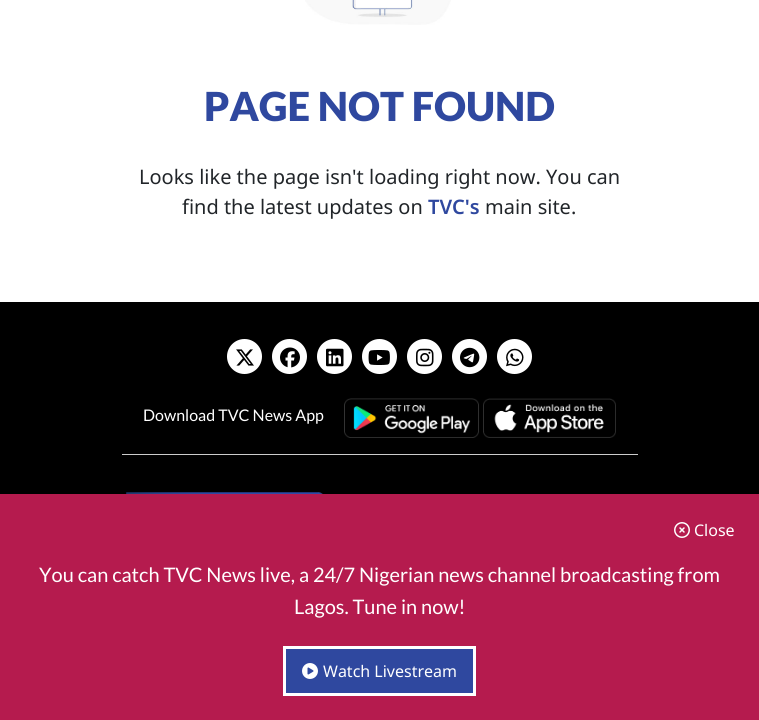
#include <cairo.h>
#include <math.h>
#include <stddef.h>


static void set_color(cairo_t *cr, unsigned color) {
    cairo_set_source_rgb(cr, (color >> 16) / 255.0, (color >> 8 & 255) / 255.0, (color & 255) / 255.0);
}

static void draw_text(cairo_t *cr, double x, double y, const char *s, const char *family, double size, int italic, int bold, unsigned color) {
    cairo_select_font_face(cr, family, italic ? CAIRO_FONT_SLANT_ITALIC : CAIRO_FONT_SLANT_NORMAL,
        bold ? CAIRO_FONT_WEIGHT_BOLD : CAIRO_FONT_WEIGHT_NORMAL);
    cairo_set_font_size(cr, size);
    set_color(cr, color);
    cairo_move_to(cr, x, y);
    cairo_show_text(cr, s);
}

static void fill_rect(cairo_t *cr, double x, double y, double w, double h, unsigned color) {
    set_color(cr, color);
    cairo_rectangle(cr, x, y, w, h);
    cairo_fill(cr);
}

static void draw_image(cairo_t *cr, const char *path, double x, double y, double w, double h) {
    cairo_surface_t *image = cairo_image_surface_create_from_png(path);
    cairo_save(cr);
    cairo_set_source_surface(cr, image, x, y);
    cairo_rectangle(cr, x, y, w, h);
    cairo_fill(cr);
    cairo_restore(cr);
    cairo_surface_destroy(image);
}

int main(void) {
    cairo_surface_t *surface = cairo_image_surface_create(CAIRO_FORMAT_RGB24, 759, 720);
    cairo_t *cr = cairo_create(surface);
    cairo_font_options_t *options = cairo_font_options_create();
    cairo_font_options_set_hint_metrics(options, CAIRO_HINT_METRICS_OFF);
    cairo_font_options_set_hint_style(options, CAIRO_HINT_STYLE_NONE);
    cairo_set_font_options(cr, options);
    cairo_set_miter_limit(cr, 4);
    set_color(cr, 0xFFFFFF);
    cairo_paint(cr);
    draw_image(cr, "assets/img1.png", 305, 0, 146, 25);
    draw_text(cr, 204, 121, "PAGE NOT FOUND", "Lato Black", 40, 0, 0, 0x2F489F);
    draw_text(cr, 139, 184, "Looks like the page isn't loading right now. You can", "Noto Sans", 20, 0, 0, 0x212529);
    draw_text(cr, 182, 214, "find the latest updates on", "Noto Sans", 20, 0, 0, 0x212529);
    draw_text(cr, 428, 214, "TVC's", "Noto Sans SemiBold", 20, 0, 0, 0x2F489F);
    draw_text(cr, 485, 214, "main site.", "Noto Sans", 20, 0, 0, 0x212529);
    fill_rect(cr, 0, 302, 759, 192, 0x000000);
    fill_rect(cr, 122, 454, 516, 1, 0xCCCCCC);
    set_color(cr, 0xFFFFFF);
    cairo_new_path(cr);
    cairo_arc(cr, 244.5, 356.5, 17.5, 0, 2 * M_PI);
    cairo_fill(cr);
    draw_image(cr, "assets/img2.png", 236, 349, 18, 17);
    cairo_arc(cr, 289.5, 356.5, 17.5, 0, 2 * M_PI);
    cairo_fill(cr);
    draw_image(cr, "assets/img3.png", 280, 347, 20, 21);
    cairo_arc(cr, 334.5, 356.5, 17.5, 0, 2 * M_PI);
    cairo_fill(cr);
    draw_image(cr, "assets/img4.png", 326, 348, 18, 19);
    cairo_arc(cr, 379.5, 356.5, 17.5, 0, 2 * M_PI);
    cairo_fill(cr);
    draw_image(cr, "assets/img5.png", 368, 350, 22, 15);
    cairo_arc(cr, 424.5, 356.5, 17.5, 0, 2 * M_PI);
    cairo_fill(cr);
    draw_image(cr, "assets/img6.png", 416, 348, 18, 19);
    cairo_arc(cr, 469.5, 356.5, 17.5, 0, 2 * M_PI);
    cairo_fill(cr);
    draw_image(cr, "assets/img7.png", 460, 347, 20, 21);
    cairo_arc(cr, 514.5, 356.5, 17.5, 0, 2 * M_PI);
    cairo_fill(cr);
    draw_image(cr, "assets/img8.png", 506, 348, 18, 19);
    draw_text(cr, 143, 421, "Download TVC News App", "Lato", 16, 0, 0, 0xFFFFFF);
    draw_image(cr, "assets/img9.png", 344, 398, 135, 40);
    draw_image(cr, "assets/img10.png", 483, 398, 133, 40);
    draw_image(cr, "assets/img11.png", 126, 492, 197, 2);
    fill_rect(cr, 0, 494, 759, 226, 0xB51B4E);
    draw_image(cr, "assets/img12.png", 674, 522, 16, 16);
    draw_text(cr, 694, 536, "Close", "Noto Sans", 16, 0, 0, 0xFFFFFF);
    draw_text(cr, 39, 582, "You can catch TVC News live, a 24/7 Nigerian news channel broadcasting from", "Lato", 20, 0, 0, 0xFFFFFF);
    draw_text(cr, 294, 614, "Lagos. Tune in now!", "Lato", 20, 0, 0, 0xFFFFFF);
    set_color(cr, 0x2F489F);
    cairo_rectangle(cr, 284.5, 647.5, 190, 47);
    cairo_fill_preserve(cr);
    set_color(cr, 0xFFFFFF);
    cairo_set_line_width(cr, 3);
    cairo_stroke(cr);
    draw_image(cr, "assets/img13.png", 302, 663, 16, 16);
    draw_text(cr, 323, 677, "Watch Livestream", "Noto Sans", 16, 0, 0, 0xFFFFFF);
    cairo_surface_write_to_png(surface, "output.png");
    cairo_font_options_destroy(options);
    cairo_destroy(cr);
    cairo_surface_destroy(surface);
    return 0;
}
